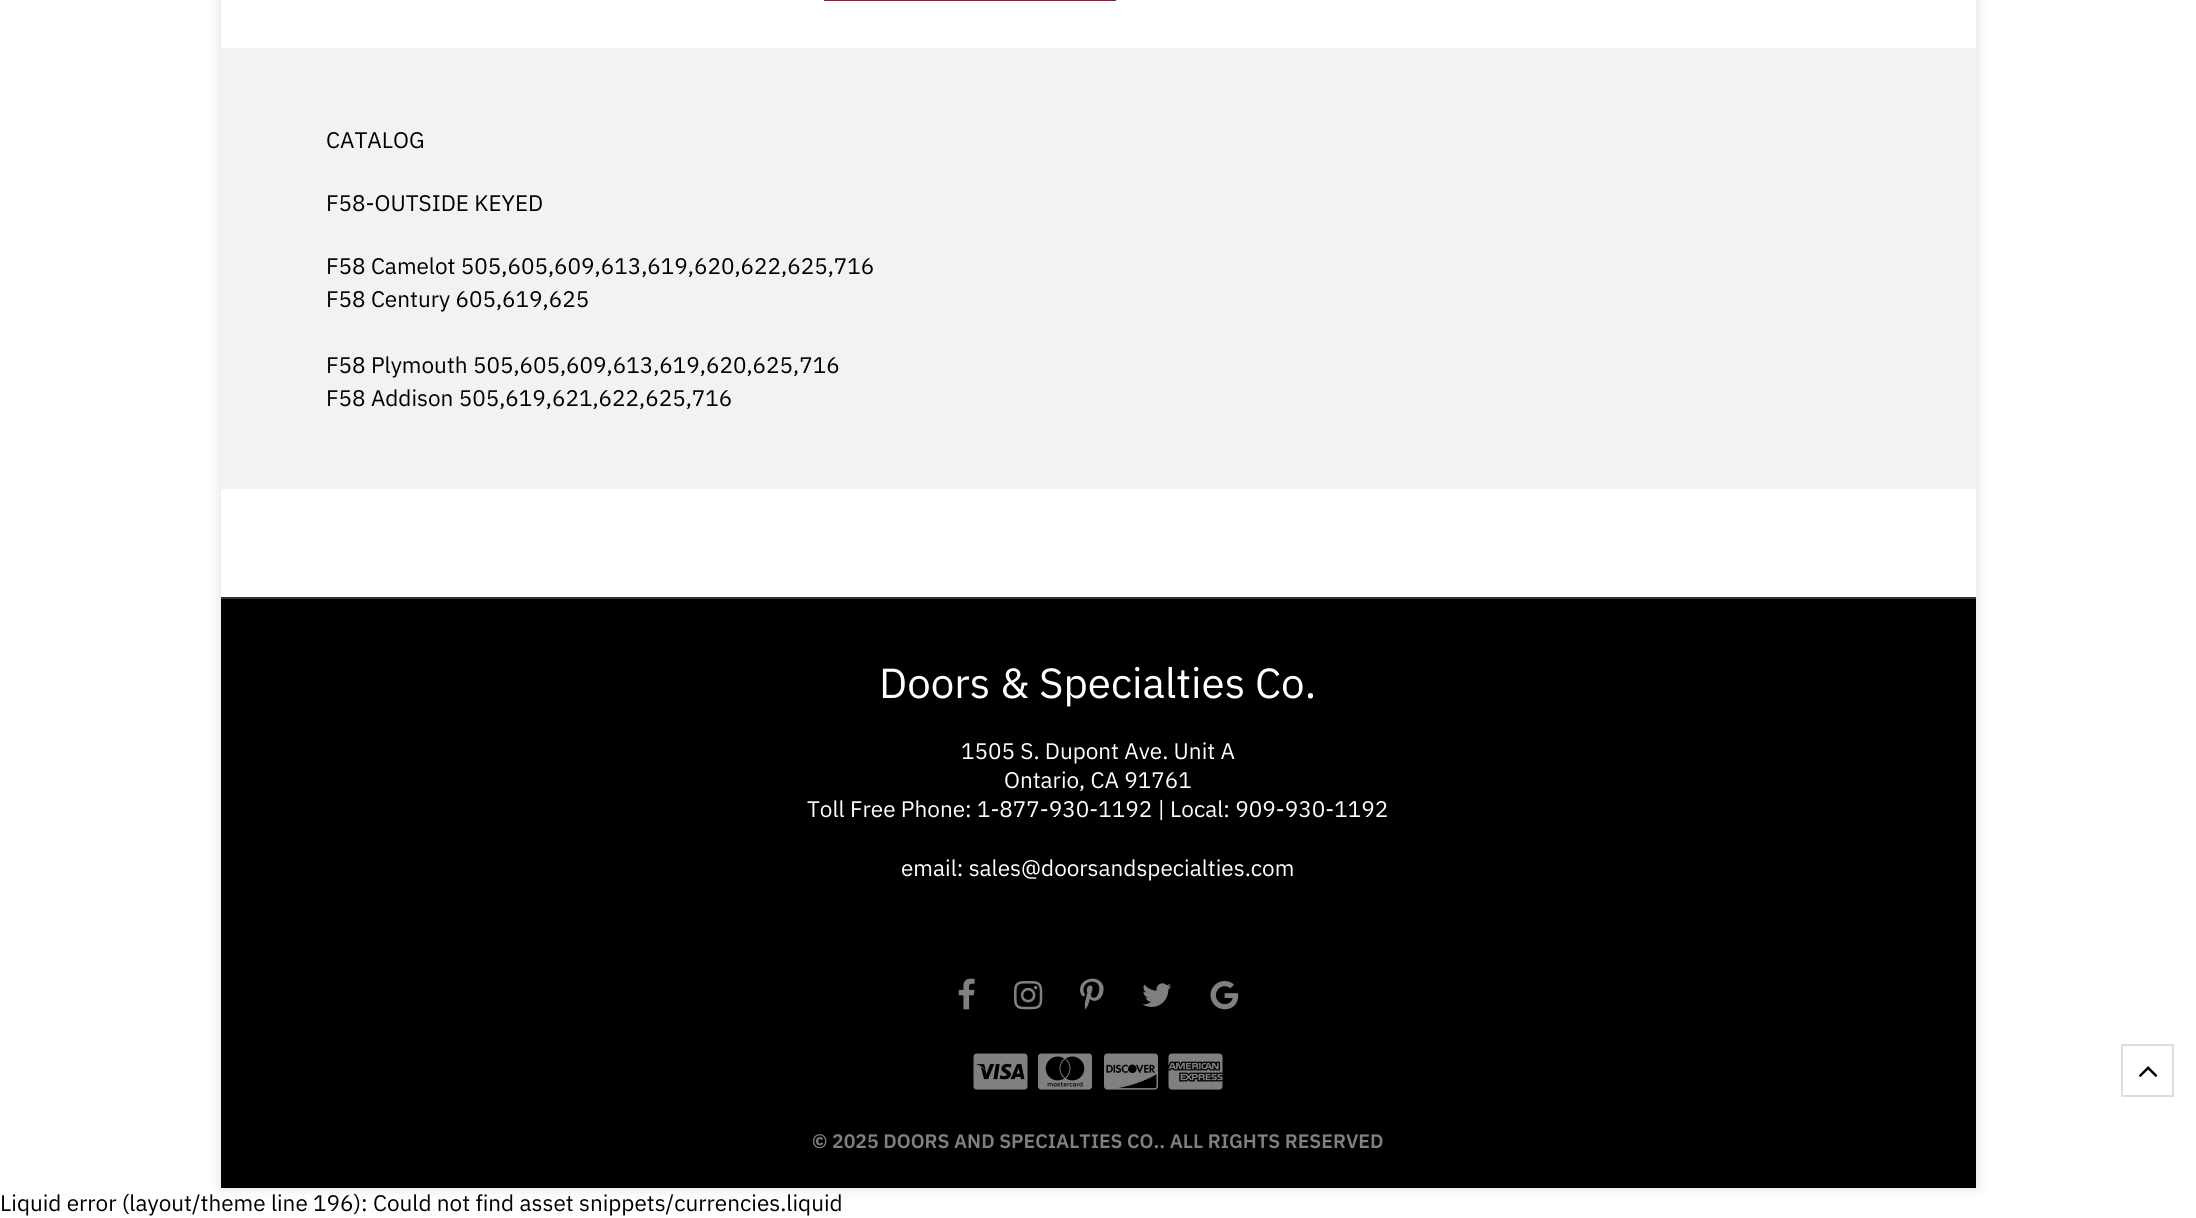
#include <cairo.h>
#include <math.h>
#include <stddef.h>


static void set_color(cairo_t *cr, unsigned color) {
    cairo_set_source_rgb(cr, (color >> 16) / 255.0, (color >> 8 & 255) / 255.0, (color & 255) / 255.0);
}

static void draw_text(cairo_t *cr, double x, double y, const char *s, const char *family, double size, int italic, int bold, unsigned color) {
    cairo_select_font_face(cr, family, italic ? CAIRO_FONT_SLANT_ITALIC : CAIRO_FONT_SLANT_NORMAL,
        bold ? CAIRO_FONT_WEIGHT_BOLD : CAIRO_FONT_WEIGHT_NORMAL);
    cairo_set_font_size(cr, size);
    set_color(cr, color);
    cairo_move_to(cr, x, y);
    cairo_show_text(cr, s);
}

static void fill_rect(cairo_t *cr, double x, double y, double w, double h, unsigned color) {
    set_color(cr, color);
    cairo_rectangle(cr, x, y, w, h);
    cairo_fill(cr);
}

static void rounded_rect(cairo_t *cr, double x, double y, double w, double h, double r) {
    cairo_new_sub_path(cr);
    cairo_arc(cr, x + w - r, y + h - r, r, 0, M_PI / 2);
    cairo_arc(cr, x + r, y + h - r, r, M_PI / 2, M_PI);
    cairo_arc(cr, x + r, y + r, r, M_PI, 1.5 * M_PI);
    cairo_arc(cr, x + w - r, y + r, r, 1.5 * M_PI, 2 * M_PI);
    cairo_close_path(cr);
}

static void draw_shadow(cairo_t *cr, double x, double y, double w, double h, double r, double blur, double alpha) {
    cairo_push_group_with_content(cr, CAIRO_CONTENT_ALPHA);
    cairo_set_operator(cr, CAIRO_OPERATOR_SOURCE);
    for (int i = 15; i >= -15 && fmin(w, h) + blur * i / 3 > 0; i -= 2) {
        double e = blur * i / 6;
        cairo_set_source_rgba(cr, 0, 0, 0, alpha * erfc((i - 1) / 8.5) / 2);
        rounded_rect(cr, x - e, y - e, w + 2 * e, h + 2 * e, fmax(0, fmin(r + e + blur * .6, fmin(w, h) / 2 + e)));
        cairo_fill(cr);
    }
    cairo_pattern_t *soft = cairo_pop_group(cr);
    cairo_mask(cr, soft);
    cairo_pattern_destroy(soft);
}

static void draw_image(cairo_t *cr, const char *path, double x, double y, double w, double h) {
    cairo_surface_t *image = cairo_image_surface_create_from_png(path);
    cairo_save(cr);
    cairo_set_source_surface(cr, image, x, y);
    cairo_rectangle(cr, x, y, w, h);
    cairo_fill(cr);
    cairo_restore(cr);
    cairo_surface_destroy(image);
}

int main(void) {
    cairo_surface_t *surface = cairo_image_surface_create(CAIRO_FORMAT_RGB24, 2196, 1218);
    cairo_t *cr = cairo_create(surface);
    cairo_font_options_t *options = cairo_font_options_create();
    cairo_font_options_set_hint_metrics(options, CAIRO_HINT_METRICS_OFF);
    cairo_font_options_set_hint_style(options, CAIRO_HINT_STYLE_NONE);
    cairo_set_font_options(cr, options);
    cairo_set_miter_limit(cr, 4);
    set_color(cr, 0xFFFFFF);
    cairo_paint(cr);
    set_color(cr, 0xDDDDDD);
    draw_shadow(cr, 221, -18, 1755, 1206, 0, 6, 1);
    fill_rect(cr, 221, 0, 1755, 597, 0xFFFFFF);
    fill_rect(cr, 824, 0, 292, 1, 0xA81425);
    fill_rect(cr, 221, 48, 1755, 441, 0xF2F2F2);
    draw_text(cr, 326, 148, "CATALOG", "IBM Plex Sans", 22.5, 0, 0, 0x000000);
    draw_text(cr, 326, 211, "F58-OUTSIDE KEYED", "IBM Plex Sans", 22.5, 0, 0, 0x000000);
    draw_text(cr, 326, 274, "F58 Camelot 505,605,609,613,619,620,622,625,716", "IBM Plex Sans", 22.5, 0, 0, 0x000000);
    draw_text(cr, 326, 307, "F58 Century 605,619,625", "IBM Plex Sans", 22.5, 0, 0, 0x000000);
    draw_text(cr, 326, 373, "F58 Plymouth 505,605,609,613,619,620,625,716", "IBM Plex Sans", 22.5, 0, 0, 0x000000);
    draw_text(cr, 326, 406, "F58 Addison 505,619,621,622,625,716", "IBM Plex Sans", 22.5, 0, 0, 0x000000);
    fill_rect(cr, 221, 599, 1755, 589, 0x000000);
    fill_rect(cr, 221, 597, 1755, 2, 0x333333);
    draw_text(cr, 879, 698, "Doors & Specialties Co.", "IBM Plex Sans", 42, 0, 0, 0xFFFFFF);
    draw_text(cr, 961, 759, "1505 S. Dupont Ave. Unit A", "IBM Plex Sans", 22.5, 0, 0, 0xFFFFFF);
    draw_text(cr, 1004, 788, "Ontario, CA 91761", "IBM Plex Sans", 22.5, 0, 0, 0xFFFFFF);
    draw_text(cr, 807, 817, "Toll Free Phone: 1-877-930-1192 | Local: 909-930-1192", "IBM Plex Sans", 22.5, 0, 0, 0xFFFFFF);
    draw_text(cr, 901, 876, "email: sales@doorsandspecialties.com", "IBM Plex Sans", 22.5, 0, 0, 0xFFFFFF);
    draw_image(cr, "assets/img1.png", 958, 978, 17, 32);
    draw_image(cr, "assets/img2.png", 1014, 981, 29, 29);
    draw_image(cr, "assets/img3.png", 1080, 978, 24, 32);
    draw_image(cr, "assets/img4.png", 1142, 983, 30, 24);
    draw_image(cr, "assets/img5.png", 1210, 981, 29, 29);
    draw_image(cr, "assets/img6.png", 973, 1053, 55, 37);
    draw_image(cr, "assets/img7.png", 1038, 1053, 54, 37);
    draw_image(cr, "assets/img8.png", 1104, 1053, 54, 37);
    draw_image(cr, "assets/img9.png", 1168, 1053, 55, 37);
    draw_text(cr, 812, 1148, "© 2025 DOORS AND SPECIALTIES CO.. ALL RIGHTS RESERVED", "IBM Plex Sans SemiBold", 19.5, 0, 0, 0x808080);
    cairo_rectangle(cr, 2122, 1045, 51, 51);
    set_color(cr, 0xDDDDDD);
    cairo_stroke(cr);
    draw_image(cr, "assets/img10.png", 2139, 1066, 19, 11);
    draw_text(cr, 0, 1211, "Liquid error (layout/theme line 196): Could not find asset snippets/currencies.liquid", "IBM Plex Sans", 22.5, 0, 0, 0x000000);
    cairo_surface_write_to_png(surface, "output.png");
    cairo_font_options_destroy(options);
    cairo_destroy(cr);
    cairo_surface_destroy(surface);
    return 0;
}
